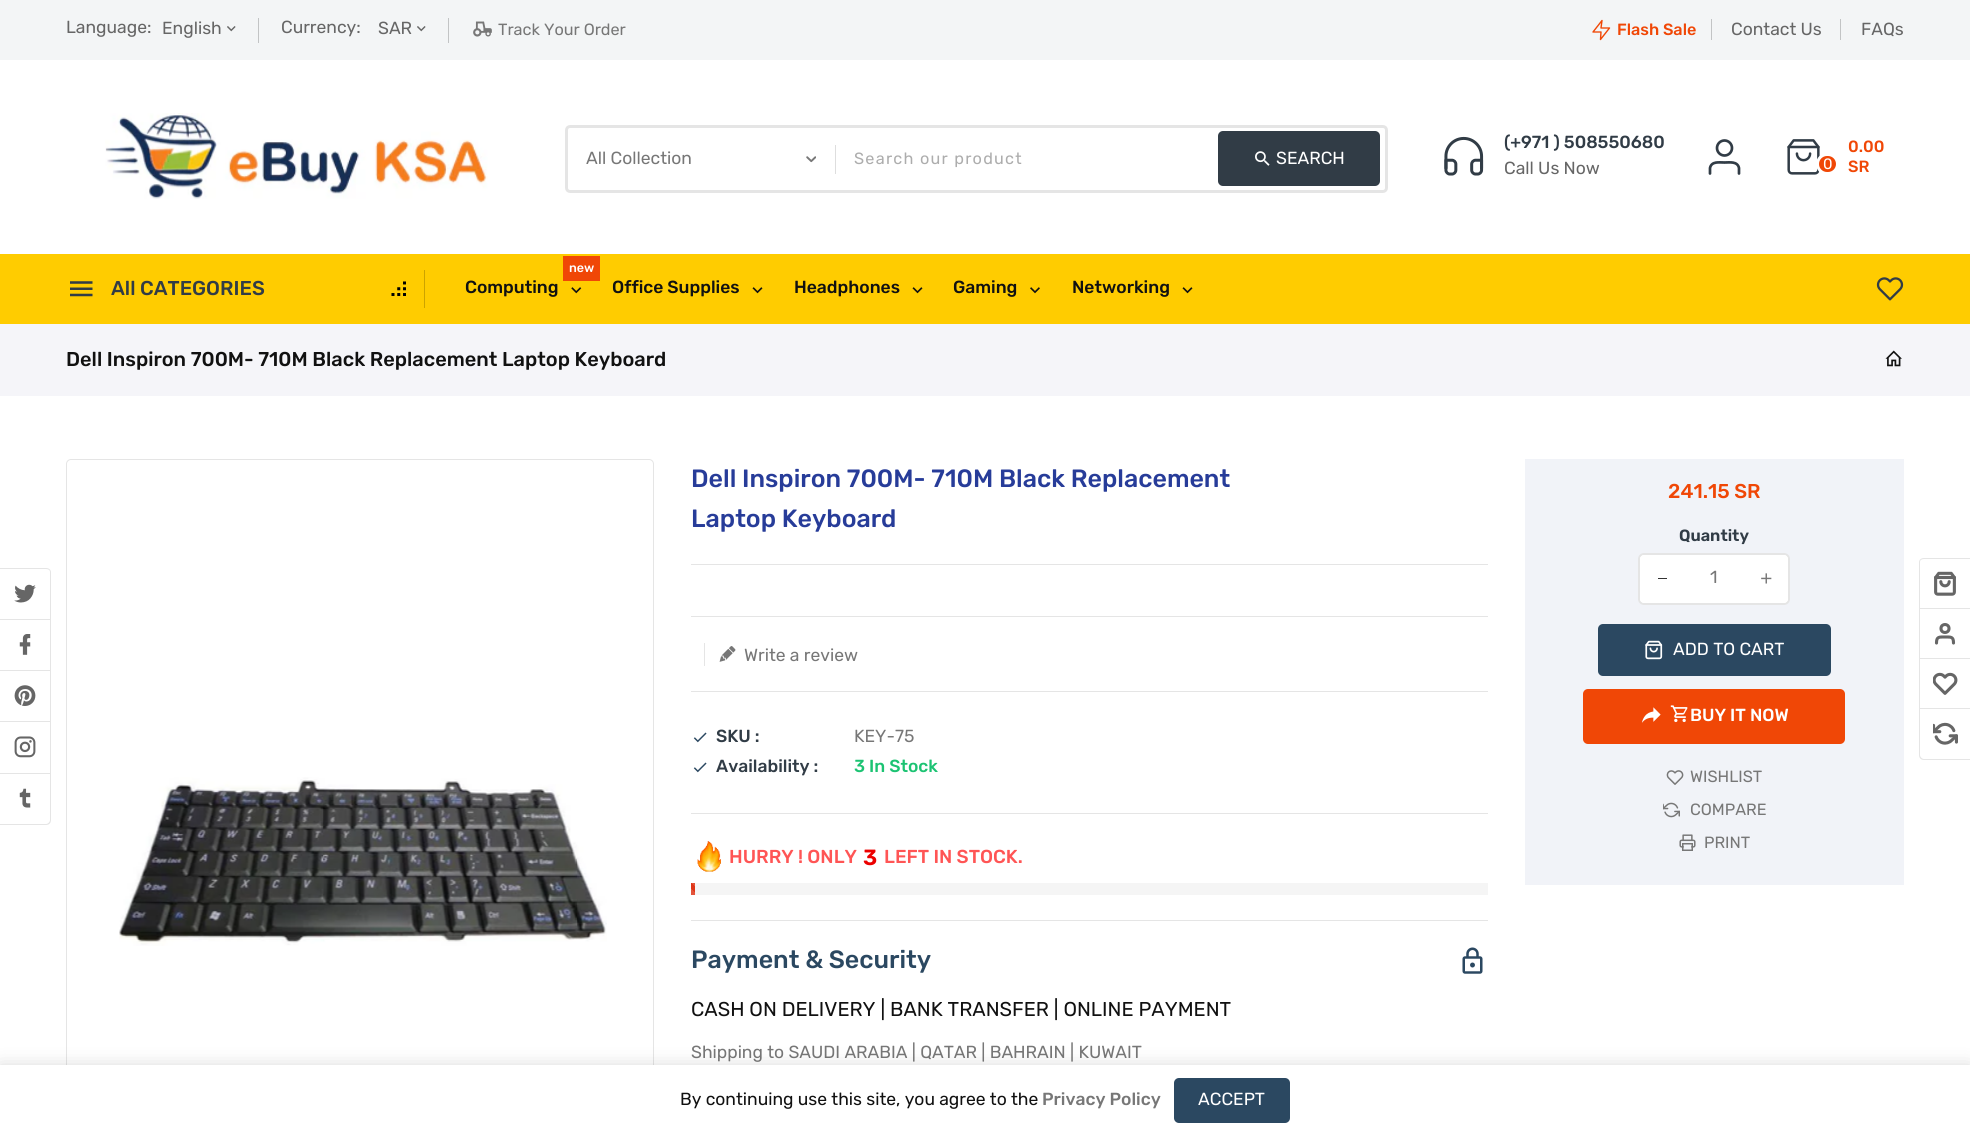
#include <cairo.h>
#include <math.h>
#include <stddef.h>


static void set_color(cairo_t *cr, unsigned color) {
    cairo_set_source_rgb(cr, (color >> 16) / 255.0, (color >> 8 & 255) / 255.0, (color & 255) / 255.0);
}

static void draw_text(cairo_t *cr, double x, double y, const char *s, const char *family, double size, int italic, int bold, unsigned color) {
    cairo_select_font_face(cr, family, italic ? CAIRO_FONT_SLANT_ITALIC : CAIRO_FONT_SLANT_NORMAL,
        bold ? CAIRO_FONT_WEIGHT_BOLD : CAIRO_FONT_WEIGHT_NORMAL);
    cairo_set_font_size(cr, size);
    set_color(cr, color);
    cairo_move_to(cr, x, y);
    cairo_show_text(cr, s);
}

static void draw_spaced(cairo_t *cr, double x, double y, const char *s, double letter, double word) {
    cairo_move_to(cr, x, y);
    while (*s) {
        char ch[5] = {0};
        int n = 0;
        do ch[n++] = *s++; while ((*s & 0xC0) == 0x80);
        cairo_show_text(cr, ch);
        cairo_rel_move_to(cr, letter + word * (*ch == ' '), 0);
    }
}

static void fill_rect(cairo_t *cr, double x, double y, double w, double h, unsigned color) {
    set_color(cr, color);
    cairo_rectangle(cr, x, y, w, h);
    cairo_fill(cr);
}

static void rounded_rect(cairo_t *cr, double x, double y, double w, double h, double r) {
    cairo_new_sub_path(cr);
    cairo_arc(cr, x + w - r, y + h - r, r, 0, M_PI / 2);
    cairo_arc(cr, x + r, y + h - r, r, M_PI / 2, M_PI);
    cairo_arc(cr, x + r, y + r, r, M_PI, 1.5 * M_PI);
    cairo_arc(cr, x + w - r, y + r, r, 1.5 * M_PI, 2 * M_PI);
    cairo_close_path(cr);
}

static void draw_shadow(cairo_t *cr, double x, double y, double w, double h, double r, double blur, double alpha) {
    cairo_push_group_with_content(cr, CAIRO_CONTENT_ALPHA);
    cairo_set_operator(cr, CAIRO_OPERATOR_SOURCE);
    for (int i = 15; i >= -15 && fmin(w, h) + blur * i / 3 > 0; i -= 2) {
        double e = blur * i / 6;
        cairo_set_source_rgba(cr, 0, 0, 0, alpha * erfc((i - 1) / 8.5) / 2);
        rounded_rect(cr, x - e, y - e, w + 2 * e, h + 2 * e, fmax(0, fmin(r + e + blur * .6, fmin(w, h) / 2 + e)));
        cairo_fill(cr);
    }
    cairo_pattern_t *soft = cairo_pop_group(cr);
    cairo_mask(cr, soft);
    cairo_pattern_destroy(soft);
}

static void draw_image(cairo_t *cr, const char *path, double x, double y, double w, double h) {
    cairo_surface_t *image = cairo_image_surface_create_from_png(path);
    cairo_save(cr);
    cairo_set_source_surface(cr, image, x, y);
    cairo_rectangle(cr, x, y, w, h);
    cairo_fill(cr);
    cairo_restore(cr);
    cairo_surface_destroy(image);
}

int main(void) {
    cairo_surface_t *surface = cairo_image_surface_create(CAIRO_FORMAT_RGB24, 1970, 1134);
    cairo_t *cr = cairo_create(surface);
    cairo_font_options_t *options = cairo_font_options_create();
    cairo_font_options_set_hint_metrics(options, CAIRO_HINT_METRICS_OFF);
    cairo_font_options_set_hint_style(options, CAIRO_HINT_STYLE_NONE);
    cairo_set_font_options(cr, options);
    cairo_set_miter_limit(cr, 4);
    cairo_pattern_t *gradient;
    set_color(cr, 0xFFFFFF);
    cairo_paint(cr);
    fill_rect(cr, 0, 0, 1970, 60, 0xF3F5F6);
    draw_text(cr, 66, 33, "Language:", "Rubik", 17.5, 0, 0, 0x666666);
    draw_text(cr, 162, 34, "English", "Rubik", 17.5, 0, 0, 0x666666);
    draw_image(cr, "assets/img1.png", 227, 26, 9, 6);
    fill_rect(cr, 258, 18, 1, 25, 0xC2C4C5);
    draw_text(cr, 281, 33, "Currency:", "Rubik", 17.5, 0, 0, 0x666666);
    draw_text(cr, 378, 34, "SAR", "Rubik", 17.5, 0, 0, 0x666666);
    draw_image(cr, "assets/img1.png", 417, 26, 9, 6);
    fill_rect(cr, 448, 18, 1, 25, 0xC2C4C5);
    draw_image(cr, "assets/img2.png", 473, 21, 19, 16);
    draw_text(cr, 498, 35, "Track Your Order", "Rubik", 16.25, 0, 0, 0x777777);
    cairo_new_path(cr);
    cairo_move_to(cr, 1602, 20.5);
    cairo_line_to(cr, 1593, 32);
    cairo_line_to(cr, 1601, 32);
    cairo_line_to(cr, 1600.5, 39.5);
    cairo_line_to(cr, 1609.5, 28);
    cairo_line_to(cr, 1601, 28);
    cairo_close_path(cr);
    set_color(cr, 0xF04706);
    cairo_set_line_width(cr, 1.4);
    cairo_set_line_cap(cr, CAIRO_LINE_CAP_ROUND);
    cairo_set_line_join(cr, CAIRO_LINE_JOIN_ROUND);
    cairo_stroke(cr);
    draw_text(cr, 1617, 35, "Flash Sale", "Rubik Medium", 16.25, 0, 0, 0xF04706);
    draw_text(cr, 1731, 35, "Contact Us", "Rubik", 17.5, 0, 0, 0x666666);
    fill_rect(cr, 1840, 19, 1, 21, 0xC2C4C5);
    fill_rect(cr, 1711, 19, 1, 21, 0xC2C4C5);
    draw_text(cr, 1861, 35, "FAQs", "Rubik", 17.5, 0, 0, 0x666666);
    draw_image(cr, "assets/img3.png", 105, 113, 383, 86);
    rounded_rect(cr, 566.5, 126.5, 820, 65, 3.5);
    set_color(cr, 0xE5E5E5);
    cairo_set_line_width(cr, 3);
    cairo_set_line_cap(cr, CAIRO_LINE_CAP_BUTT);
    cairo_set_line_join(cr, CAIRO_LINE_JOIN_MITER);
    cairo_stroke(cr);
    draw_image(cr, "assets/img4.png", 806, 156, 10, 7);
    draw_text(cr, 586, 164, "All Collection", "Rubik", 17.5, 0, 0, 0x777777);
    fill_rect(cr, 835, 145, 1, 29, 0xDEDEDE);
    cairo_set_font_size(cr, 16.25);
    set_color(cr, 0xADADAD);
    draw_spaced(cr, 854, 164, "Search our product", 1.25, 0);
    set_color(cr, 0x313C46);
    rounded_rect(cr, 1218, 131, 162, 55, 5);
    cairo_fill(cr);
    draw_image(cr, "assets/img5.png", 1255, 151, 15, 15);
    draw_text(cr, 1276, 164, "SEARCH", "Rubik", 17.5, 0, 0, 0xFFFFFF);
    draw_image(cr, "assets/img6.png", 1444, 136, 40, 40);
    draw_text(cr, 1504, 148, "(+971 ) 508550680", "Rubik Medium", 17.5, 0, 0, 0x313C46);
    draw_text(cr, 1504, 174, "Call Us Now", "Rubik", 17.5, 0, 0, 0x666666);
    cairo_new_path(cr);
    cairo_move_to(cr, 1739, 173.5);
    cairo_line_to(cr, 1739, 168);
    cairo_curve_to(cr, 1737.5, 161, 1729.5, 162.5, 1724.5, 162.5);
    cairo_curve_to(cr, 1719, 162.5, 1711.5, 161, 1710, 168);
    cairo_line_to(cr, 1710, 173.5);
    set_color(cr, 0x313C46);
    cairo_set_line_width(cr, 2.7);
    cairo_set_line_cap(cr, CAIRO_LINE_CAP_ROUND);
    cairo_set_line_join(cr, CAIRO_LINE_JOIN_ROUND);
    cairo_stroke(cr);
    cairo_arc(cr, 1724.5, 148, 7.5, 0, 2 * M_PI);
    cairo_set_line_cap(cr, CAIRO_LINE_CAP_BUTT);
    cairo_set_line_join(cr, CAIRO_LINE_JOIN_MITER);
    cairo_stroke(cr);
    draw_image(cr, "assets/img7.png", 1787, 139, 33, 36);
    set_color(cr, 0xF04706);
    rounded_rect(cr, 1817.5, 154.5, 20, 19, 9.5);
    cairo_fill_preserve(cr);
    set_color(cr, 0xFFFFFF);
    cairo_set_line_width(cr, 3);
    cairo_stroke(cr);
    draw_text(cr, 1823, 169, "0", "Rubik", 15, 0, 0, 0xFFFFFF);
    draw_text(cr, 1848, 152, "0.00", "Rubik Medium", 16.25, 0, 0, 0xF04706);
    draw_text(cr, 1848, 172, "SR", "Rubik Medium", 16.25, 0, 0, 0xF04706);
    fill_rect(cr, 0, 254, 1970, 70, 0xFFCC00);
    draw_image(cr, "assets/img8.png", 70, 281, 23, 16);
    draw_text(cr, 111, 295, "All CATEGORIES", "Rubik Medium", 20, 0, 0, 0x313C46);
    draw_image(cr, "assets/img9.png", 391, 281, 15, 15);
    fill_rect(cr, 424, 270, 1, 38, 0xCCA300);
    fill_rect(cr, 563, 256, 37, 25, 0xF04706);
    draw_text(cr, 569, 272, "new", "Rubik Medium", 12.5, 0, 0, 0xFFFFFF);
    draw_text(cr, 465, 293, "Computing", "Rubik Medium", 17.5, 0, 0, 0x111111);
    draw_image(cr, "assets/img10.png", 571, 287, 11, 7);
    draw_text(cr, 612, 293, "Office Supplies", "Rubik Medium", 17.5, 0, 0, 0x111111);
    draw_image(cr, "assets/img11.png", 752, 287, 11, 7);
    draw_text(cr, 794, 293, "Headphones", "Rubik Medium", 17.5, 0, 0, 0x111111);
    draw_image(cr, "assets/img11.png", 912, 287, 11, 7);
    draw_text(cr, 953, 293, "Gaming", "Rubik Medium", 17.5, 0, 0, 0x111111);
    draw_image(cr, "assets/img12.png", 1030, 287, 10, 7);
    draw_text(cr, 1072, 293, "Networking", "Rubik Medium", 17.5, 0, 0, 0x111111);
    draw_image(cr, "assets/img11.png", 1182, 287, 11, 7);
    draw_image(cr, "assets/img13.png", 1876, 277, 28, 24);
    set_color(cr, 0xE5E5E5);
    cairo_set_fill_rule(cr, CAIRO_FILL_RULE_EVEN_ODD);
    cairo_new_path(cr);
    cairo_move_to(cr, 0, 568);
    cairo_line_to(cr, 46, 568);
    cairo_curve_to(cr, 49, 568, 51, 570, 51, 572);
    cairo_line_to(cr, 51, 820);
    cairo_curve_to(cr, 51, 823, 49, 825, 46, 825);
    cairo_line_to(cr, 0, 825);
    cairo_close_path(cr);
    cairo_move_to(cr, 0, 569);
    cairo_line_to(cr, 46, 569);
    cairo_curve_to(cr, 48, 569, 50, 570, 50, 572);
    cairo_line_to(cr, 50, 820);
    cairo_curve_to(cr, 50, 822, 48, 824, 46, 824);
    cairo_line_to(cr, 0, 824);
    cairo_close_path(cr);
    cairo_fill(cr);
    fill_rect(cr, 0, 619, 50, 1, 0xE5E5E5);
    draw_image(cr, "assets/img14.png", 14, 584, 22, 19);
    fill_rect(cr, 0, 670, 50, 1, 0xE5E5E5);
    draw_image(cr, "assets/img15.png", 19, 634, 12, 21);
    fill_rect(cr, 0, 721, 50, 1, 0xE5E5E5);
    draw_image(cr, "assets/img16.png", 14, 685, 22, 21);
    fill_rect(cr, 0, 773, 50, 1, 0xE5E5E5);
    draw_image(cr, "assets/img17.png", 14, 736, 22, 22);
    draw_image(cr, "assets/img18.png", 19, 788, 12, 20);
    fill_rect(cr, 0, 324, 1970, 72, 0xF5F5F9);
    draw_text(cr, 66, 366, "Dell Inspiron 700M- 710M Black Replacement Laptop Keyboard", "Rubik Medium", 20, 0, 0, 0x111111);
    draw_image(cr, "assets/img19.png", 1885, 350, 17, 17);
    rounded_rect(cr, 66.5, 459.5, 587, 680, 4.5);
    set_color(cr, 0xE5E5E5);
    cairo_set_line_width(cr, 1);
    cairo_stroke(cr);
    draw_image(cr, "assets/img20.png", 119, 777, 488, 169);
    draw_text(cr, 691, 487, "Dell Inspiron 700M- 710M Black Replacement", "Rubik Medium", 25, 0, 0, 0x273C99);
    draw_text(cr, 691, 527, "Laptop Keyboard", "Rubik Medium", 25, 0, 0, 0x273C99);
    fill_rect(cr, 691, 564, 797, 1, 0xE5E5E5);
    fill_rect(cr, 691, 616, 797, 1, 0xE5E5E5);
    fill_rect(cr, 704, 643, 1, 23, 0xE5E5E5);
    draw_image(cr, "assets/img21.png", 719, 646, 17, 16);
    draw_text(cr, 744, 661, "Write a review", "Rubik", 17.5, 0, 0, 0x777777);
    fill_rect(cr, 691, 691, 797, 1, 0xE5E5E5);
    draw_image(cr, "assets/img22.png", 693, 732, 14, 11);
    draw_text(cr, 716, 742, "SKU :", "Rubik Medium", 17.5, 0, 0, 0x313C46);
    draw_text(cr, 854, 742, "KEY-75", "Rubik", 17.5, 0, 0, 0x777777);
    draw_image(cr, "assets/img22.png", 693, 762, 14, 11);
    draw_text(cr, 716, 772, "Availability :", "Rubik Medium", 17.5, 0, 0, 0x313C46);
    draw_text(cr, 854, 772, "3 In Stock", "Rubik Medium", 17.5, 0, 0, 0x1CC373);
    fill_rect(cr, 691, 813, 797, 1, 0xE5E5E5);
    draw_image(cr, "assets/img23.png", 697, 841, 24, 31);
    draw_text(cr, 729, 863, "HURRY ! ONLY", "Rubik Medium", 18.75, 0, 0, 0xFF5555);
    draw_text(cr, 863, 865, "3", "Rubik SemiBold", 22, 0, 0, 0xEC0000);
    draw_text(cr, 884, 863, "LEFT IN STOCK.", "Rubik Medium", 18.75, 0, 0, 0xFF5555);
    fill_rect(cr, 695, 883, 793, 12, 0xF5F5F5);
    gradient = cairo_pattern_create_linear(691, 895, 704, 883);
    cairo_pattern_add_color_stop_rgba(gradient, 0.25, 0.89, 0.329, 0.231, 1);
    cairo_pattern_add_color_stop_rgba(gradient, 0.25, 0.871, 0.212, 0.094, 1);
    cairo_pattern_add_color_stop_rgba(gradient, 0.5, 0.871, 0.212, 0.094, 1);
    cairo_pattern_add_color_stop_rgba(gradient, 0.5, 0.89, 0.329, 0.231, 1);
    cairo_pattern_add_color_stop_rgba(gradient, 0.75, 0.89, 0.329, 0.231, 1);
    cairo_pattern_add_color_stop_rgba(gradient, 0.75, 0.871, 0.212, 0.094, 1);
    cairo_pattern_add_color_stop_rgba(gradient, 1, 0.871, 0.212, 0.094, 1);
    cairo_set_source(cr, gradient);
    cairo_pattern_destroy(gradient);
    cairo_rectangle(cr, 691, 883, 4, 12);
    cairo_fill(cr);
    fill_rect(cr, 691, 920, 797, 1, 0xE5E5E5);
    draw_text(cr, 691, 968, "Payment & Security", "Rubik Medium", 25, 0, 0, 0x2B4861);
    draw_image(cr, "assets/img24.png", 1462, 947, 21, 27);
    draw_text(cr, 691, 1016, "CASH ON DELIVERY | BANK TRANSFER | ONLINE PAYMENT", "Rubik", 20, 0, 0, 0x111111);
    draw_text(cr, 691, 1058, "Shipping to SAUDI ARABIA | QATAR | BAHRAIN | KUWAIT", "Rubik", 17.5, 0, 0, 0x777777);
    fill_rect(cr, 1525, 459, 379, 426, 0xF1F3F8);
    draw_text(cr, 1668, 498, "241.15 SR", "Rubik Medium", 20, 0, 0, 0xF04706);
    draw_text(cr, 1679, 541, "Quantity", "Rubik SemiBold", 16.25, 0, 0, 0x313C46);
    rounded_rect(cr, 1639.5, 554.5, 149, 49, 4.5);
    set_color(cr, 0xE5E5E5);
    cairo_set_line_width(cr, 3);
    cairo_stroke(cr);
    set_color(cr, 0xFFFFFF);
    rounded_rect(cr, 1640, 555, 148, 48, 4);
    cairo_fill(cr);
    cairo_new_path(cr);
    cairo_move_to(cr, 1644, 555);
    cairo_line_to(cr, 1684, 555);
    cairo_line_to(cr, 1684, 603);
    cairo_line_to(cr, 1644, 603);
    cairo_curve_to(cr, 1642, 603, 1640, 601, 1640, 599);
    cairo_line_to(cr, 1640, 559);
    cairo_curve_to(cr, 1640, 557, 1642, 555, 1644, 555);
    cairo_close_path(cr);
    cairo_fill(cr);
    fill_rect(cr, 1658, 578, 9, 1, 0x333333);
    draw_text(cr, 1710, 583, "1", "Rubik", 17.5, 0, 0, 0x777777);
    set_color(cr, 0xFFFFFF);
    cairo_new_path(cr);
    cairo_move_to(cr, 1744, 555);
    cairo_line_to(cr, 1784, 555);
    cairo_curve_to(cr, 1786, 555, 1788, 557, 1788, 559);
    cairo_line_to(cr, 1788, 599);
    cairo_curve_to(cr, 1788, 601, 1786, 603, 1784, 603);
    cairo_line_to(cr, 1744, 603);
    cairo_close_path(cr);
    cairo_fill(cr);
    draw_image(cr, "assets/img25.png", 1761, 573, 11, 11);
    set_color(cr, 0x2B4861);
    rounded_rect(cr, 1598, 624, 233, 52, 5);
    cairo_fill(cr);
    draw_image(cr, "assets/img26.png", 1645, 640, 18, 20);
    draw_text(cr, 1673, 655, "ADD TO CART", "Rubik", 17.5, 0, 0, 0xFFFFFF);
    set_color(cr, 0xF04706);
    rounded_rect(cr, 1583, 689, 262, 55, 5);
    cairo_fill(cr);
    draw_image(cr, "assets/img27.png", 1641, 707, 20, 16);
    draw_image(cr, "assets/img28.png", 1670, 705, 18, 18);
    draw_text(cr, 1690, 721, "BUY IT NOW", "Rubik Medium", 17.5, 0, 0, 0xFFFFFF);
    draw_image(cr, "assets/img29.png", 1666, 770, 18, 15);
    draw_text(cr, 1690, 782, "WISHLIST", "Rubik", 16.25, 0, 0, 0x777777);
    draw_image(cr, "assets/img30.png", 1663, 802, 17, 16);
    draw_text(cr, 1690, 815, "COMPARE", "Rubik", 16.25, 0, 0, 0x777777);
    draw_image(cr, "assets/img31.png", 1679, 834, 17, 17);
    draw_text(cr, 1704, 848, "PRINT", "Rubik", 16.25, 0, 0, 0x777777);
    set_color(cr, 0xE5E5E5);
    cairo_new_path(cr);
    cairo_move_to(cr, 1924, 558);
    cairo_line_to(cr, 1970, 558);
    cairo_line_to(cr, 1970, 760);
    cairo_line_to(cr, 1924, 760);
    cairo_curve_to(cr, 1921, 760, 1919, 758, 1919, 755);
    cairo_line_to(cr, 1919, 562);
    cairo_curve_to(cr, 1919, 560, 1921, 558, 1924, 558);
    cairo_close_path(cr);
    cairo_move_to(cr, 1924, 559);
    cairo_line_to(cr, 1970, 559);
    cairo_line_to(cr, 1970, 759);
    cairo_line_to(cr, 1924, 759);
    cairo_curve_to(cr, 1922, 759, 1920, 757, 1920, 755);
    cairo_line_to(cr, 1920, 562);
    cairo_curve_to(cr, 1920, 560, 1922, 559, 1924, 559);
    cairo_close_path(cr);
    cairo_fill(cr);
    fill_rect(cr, 1920, 608, 50, 1, 0xE5E5E5);
    draw_image(cr, "assets/img32.png", 1934, 571, 22, 25);
    fill_rect(cr, 1920, 658, 50, 1, 0xE5E5E5);
    cairo_new_path(cr);
    cairo_move_to(cr, 1953.5, 643);
    cairo_curve_to(cr, 1953.5, 636.5, 1951, 637, 1945, 637);
    cairo_curve_to(cr, 1939, 637, 1936.5, 636.5, 1936.5, 643);
    set_color(cr, 0x666666);
    cairo_set_line_width(cr, 3.1);
    cairo_set_line_cap(cr, CAIRO_LINE_CAP_ROUND);
    cairo_set_line_join(cr, CAIRO_LINE_JOIN_ROUND);
    cairo_stroke(cr);
    cairo_arc(cr, 1945, 628.5, 4, 0, 2 * M_PI);
    cairo_set_line_cap(cr, CAIRO_LINE_CAP_BUTT);
    cairo_set_line_join(cr, CAIRO_LINE_JOIN_MITER);
    cairo_stroke(cr);
    fill_rect(cr, 1920, 708, 50, 1, 0xE5E5E5);
    draw_image(cr, "assets/img33.png", 1933, 672, 25, 23);
    draw_image(cr, "assets/img34.png", 1933, 722, 25, 23);
    set_color(cr, 0x000000);
    draw_shadow(cr, 0, 1068, 1970, 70, 0, 9.5, 0.2);
    fill_rect(cr, 0, 1065, 1970, 69, 0xFFFFFF);
    draw_text(cr, 680, 1105, "By continuing use this site, you agree to the", "Rubik", 17.5, 0, 0, 0x111111);
    draw_text(cr, 1042, 1105, "Privacy Policy", "Rubik Medium", 17.5, 0, 0, 0x777777);
    set_color(cr, 0x2B4861);
    rounded_rect(cr, 1174, 1078, 116, 45, 5);
    cairo_fill(cr);
    draw_text(cr, 1198, 1105, "ACCEPT", "Rubik", 17.5, 0, 0, 0xFFFFFF);
    cairo_surface_write_to_png(surface, "output.png");
    cairo_font_options_destroy(options);
    cairo_destroy(cr);
    cairo_surface_destroy(surface);
    return 0;
}
